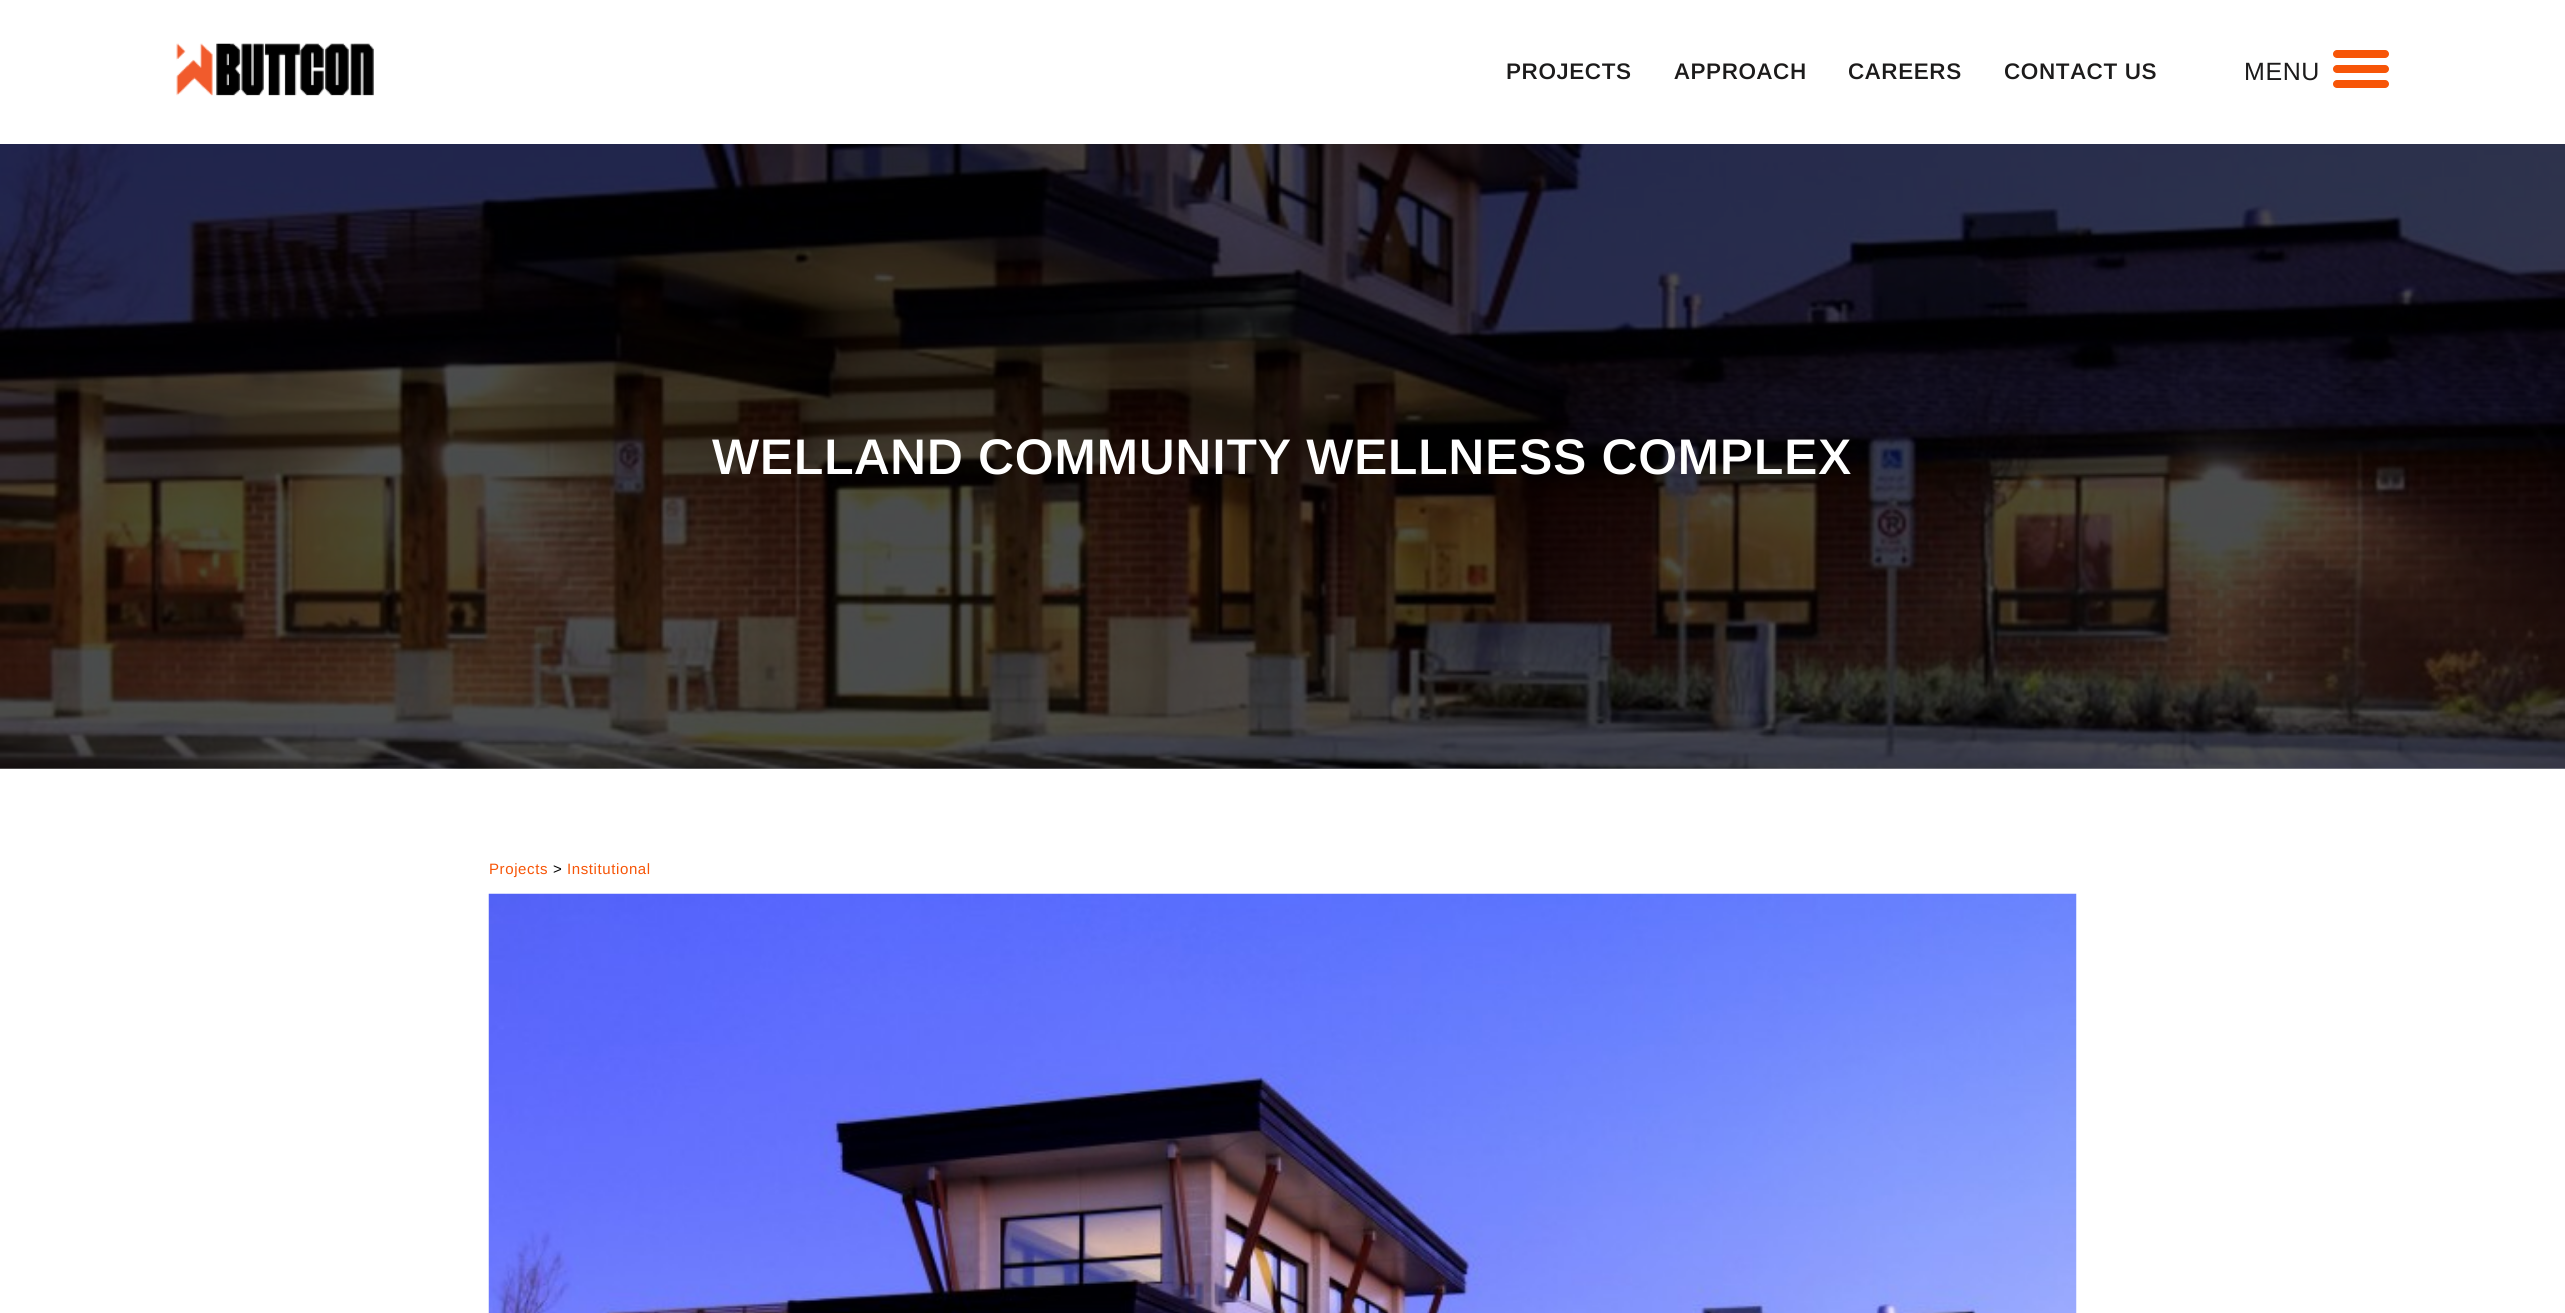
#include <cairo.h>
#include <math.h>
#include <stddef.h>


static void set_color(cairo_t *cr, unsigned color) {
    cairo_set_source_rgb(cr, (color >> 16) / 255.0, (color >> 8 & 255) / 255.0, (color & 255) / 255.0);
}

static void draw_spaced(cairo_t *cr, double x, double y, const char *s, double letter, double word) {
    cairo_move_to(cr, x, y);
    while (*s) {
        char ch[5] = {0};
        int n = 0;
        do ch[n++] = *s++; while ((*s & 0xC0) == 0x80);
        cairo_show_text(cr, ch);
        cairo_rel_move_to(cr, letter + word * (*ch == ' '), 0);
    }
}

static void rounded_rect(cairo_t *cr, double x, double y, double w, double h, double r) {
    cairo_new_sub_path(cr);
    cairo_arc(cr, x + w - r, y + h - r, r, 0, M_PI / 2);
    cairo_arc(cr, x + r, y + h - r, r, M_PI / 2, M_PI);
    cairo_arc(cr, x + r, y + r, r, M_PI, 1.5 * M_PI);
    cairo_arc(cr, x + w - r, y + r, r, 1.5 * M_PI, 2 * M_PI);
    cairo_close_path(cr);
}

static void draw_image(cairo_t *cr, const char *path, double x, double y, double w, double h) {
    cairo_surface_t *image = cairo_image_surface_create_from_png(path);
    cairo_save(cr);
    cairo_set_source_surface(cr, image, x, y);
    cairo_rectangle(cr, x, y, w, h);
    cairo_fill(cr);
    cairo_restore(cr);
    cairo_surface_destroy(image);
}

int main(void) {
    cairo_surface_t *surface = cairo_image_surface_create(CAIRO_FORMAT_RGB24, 2565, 1313);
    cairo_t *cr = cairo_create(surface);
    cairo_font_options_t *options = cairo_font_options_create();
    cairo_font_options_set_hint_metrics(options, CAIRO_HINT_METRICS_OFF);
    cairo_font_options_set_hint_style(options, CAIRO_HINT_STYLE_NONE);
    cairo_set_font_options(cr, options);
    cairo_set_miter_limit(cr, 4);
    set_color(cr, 0xFFFFFF);
    cairo_paint(cr);
    draw_image(cr, "assets/img1.png", 176, 43, 198, 53);
    cairo_select_font_face(cr, "Arimo SemiBold", CAIRO_FONT_SLANT_NORMAL, CAIRO_FONT_WEIGHT_NORMAL);
    cairo_set_font_size(cr, 22.5);
    set_color(cr, 0x1C1B1B);
    draw_spaced(cr, 1506, 79, "PROJECTS", 0.6, 0);
    draw_spaced(cr, 1674, 79, "APPROACH", 0.6, 0);
    draw_spaced(cr, 1848, 79, "CAREERS", 0.6, 0);
    draw_spaced(cr, 2004, 79, "CONTACT US", 0.6, 0);
    cairo_select_font_face(cr, "Arimo", CAIRO_FONT_SLANT_NORMAL, CAIRO_FONT_WEIGHT_NORMAL);
    cairo_set_font_size(cr, 25);
    draw_spaced(cr, 2244, 80, "MENU", 0.6, 0);
    set_color(cr, 0xF75507);
    rounded_rect(cr, 2333, 65, 56, 8, 4);
    cairo_fill(cr);
    rounded_rect(cr, 2333, 50, 56, 8, 4);
    cairo_fill(cr);
    rounded_rect(cr, 2333, 80, 56, 8, 4);
    cairo_fill(cr);
    draw_image(cr, "assets/img2.png", 0, 144, 2565, 625);
    cairo_select_font_face(cr, "Arimo SemiBold", CAIRO_FONT_SLANT_NORMAL, CAIRO_FONT_WEIGHT_NORMAL);
    cairo_set_font_size(cr, 50);
    set_color(cr, 0xFFFFFF);
    draw_spaced(cr, 712, 474, "WELLAND COMMUNITY WELLNESS COMPLEX", 0.6, 0);
    cairo_select_font_face(cr, "Arimo", CAIRO_FONT_SLANT_NORMAL, CAIRO_FONT_WEIGHT_NORMAL);
    cairo_set_font_size(cr, 15);
    set_color(cr, 0xF75507);
    draw_spaced(cr, 489, 874, "Projects", 0.6, 0);
    set_color(cr, 0x000000);
    draw_spaced(cr, 553, 874, ">", 0.6, 0);
    set_color(cr, 0xF75507);
    draw_spaced(cr, 567, 874, "Institutional", 0.6, 0);
    draw_image(cr, "assets/img3.png", 488, 893, 1589, 420);
    cairo_surface_write_to_png(surface, "output.png");
    cairo_font_options_destroy(options);
    cairo_destroy(cr);
    cairo_surface_destroy(surface);
    return 0;
}
